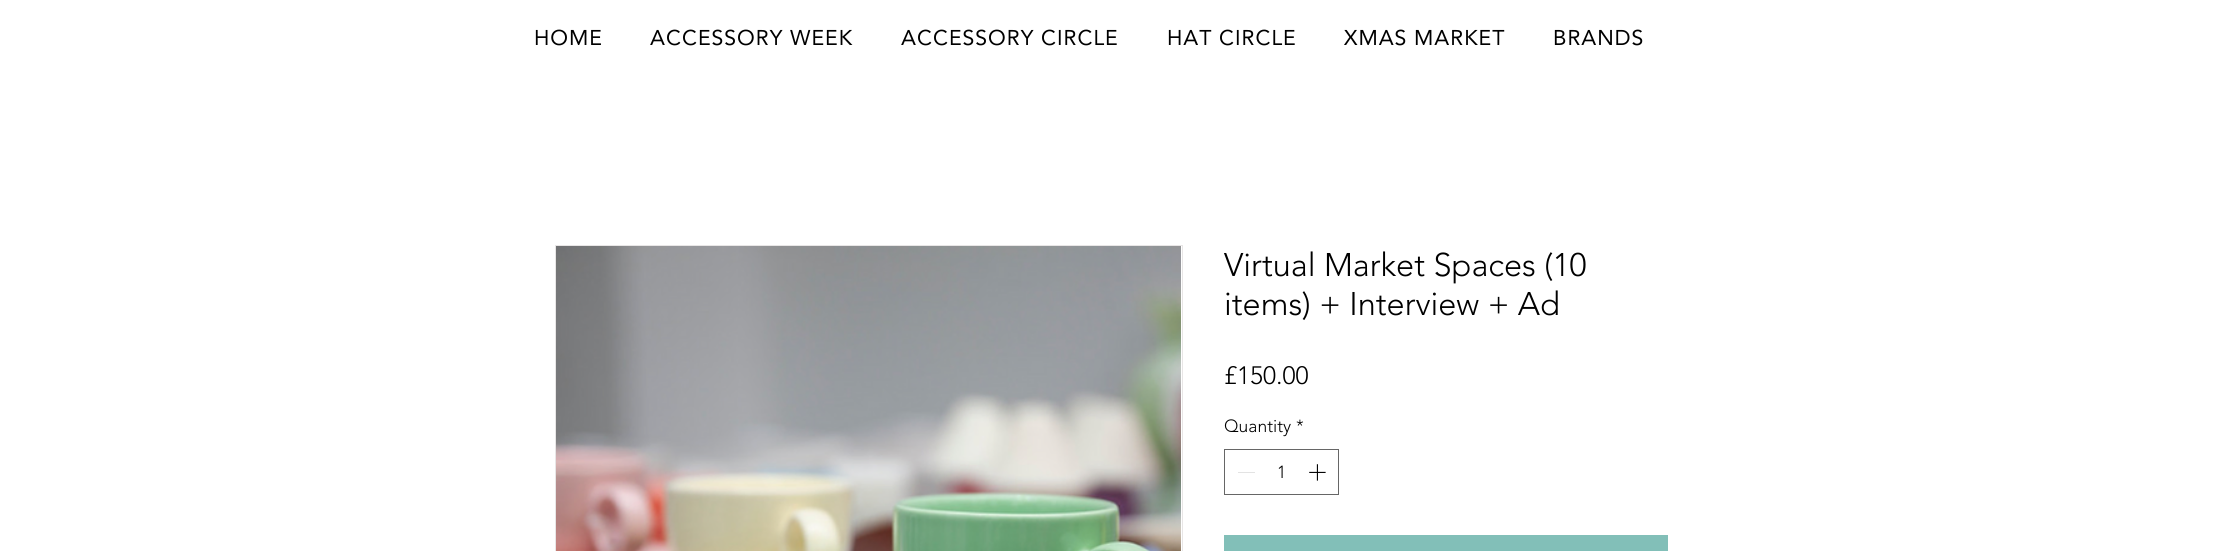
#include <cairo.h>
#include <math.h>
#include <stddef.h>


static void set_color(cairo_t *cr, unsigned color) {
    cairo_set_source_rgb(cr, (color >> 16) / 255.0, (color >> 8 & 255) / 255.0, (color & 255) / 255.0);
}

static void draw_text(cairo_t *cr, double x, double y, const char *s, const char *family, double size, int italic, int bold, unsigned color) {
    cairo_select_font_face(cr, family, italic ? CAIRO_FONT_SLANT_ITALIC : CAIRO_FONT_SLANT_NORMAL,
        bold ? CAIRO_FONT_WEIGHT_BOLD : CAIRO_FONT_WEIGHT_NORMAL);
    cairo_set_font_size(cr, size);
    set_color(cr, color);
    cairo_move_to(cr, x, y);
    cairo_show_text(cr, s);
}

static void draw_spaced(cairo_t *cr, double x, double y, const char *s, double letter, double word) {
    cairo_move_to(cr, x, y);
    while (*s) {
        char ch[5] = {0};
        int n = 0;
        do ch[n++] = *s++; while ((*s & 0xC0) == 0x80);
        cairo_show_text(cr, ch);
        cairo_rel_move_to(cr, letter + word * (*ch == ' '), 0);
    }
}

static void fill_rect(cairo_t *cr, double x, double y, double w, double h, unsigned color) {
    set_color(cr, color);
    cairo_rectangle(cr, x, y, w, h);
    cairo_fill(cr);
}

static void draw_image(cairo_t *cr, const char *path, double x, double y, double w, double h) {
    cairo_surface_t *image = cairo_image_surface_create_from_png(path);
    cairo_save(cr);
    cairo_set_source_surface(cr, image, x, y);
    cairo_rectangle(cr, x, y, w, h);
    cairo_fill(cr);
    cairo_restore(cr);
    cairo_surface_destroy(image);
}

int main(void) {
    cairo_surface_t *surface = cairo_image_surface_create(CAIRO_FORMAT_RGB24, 2222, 551);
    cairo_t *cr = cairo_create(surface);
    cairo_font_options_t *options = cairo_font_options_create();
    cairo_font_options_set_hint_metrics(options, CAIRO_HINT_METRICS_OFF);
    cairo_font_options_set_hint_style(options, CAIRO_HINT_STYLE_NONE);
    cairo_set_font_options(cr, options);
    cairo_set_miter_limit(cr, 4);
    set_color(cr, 0xFFFFFF);
    cairo_paint(cr);
    cairo_select_font_face(cr, "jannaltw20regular", CAIRO_FONT_SLANT_NORMAL, CAIRO_FONT_WEIGHT_NORMAL);
    cairo_set_font_size(cr, 21.25);
    set_color(cr, 0x000000);
    draw_spaced(cr, 534, 45, "HOME", 1, 0);
    draw_spaced(cr, 650, 45, "ACCESSORY WEEK", 1, 0);
    draw_spaced(cr, 901, 45, "ACCESSORY CIRCLE", 1, 0);
    draw_spaced(cr, 1167, 45, "HAT CIRCLE", 1, 0);
    draw_spaced(cr, 1344, 45, "XMAS MARKET", 1, 0);
    draw_spaced(cr, 1553, 45, "BRANDS", 1, 0);
    cairo_rectangle(cr, 555.5, 245.5, 627, 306);
    set_color(cr, 0xE8E6E6);
    cairo_set_line_width(cr, 1);
    cairo_stroke(cr);
    draw_image(cr, "assets/img1.png", 556, 246, 625, 305);
    draw_text(cr, 1224, 276, "Virtual Market Spaces (10", "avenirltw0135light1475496 Light", 32.5, 0, 0, 0x000000);
    draw_text(cr, 1224, 315, "items) + Interview + Ad", "avenirltw0135light1475496 Light", 32.5, 0, 0, 0x000000);
    draw_text(cr, 1224, 384, "£150.00", "avenirltw0135light1475496 Light", 25, 0, 0, 0x000000);
    draw_text(cr, 1224, 432, "Quantity", "avenirltw0135light1475496 Light", 17.5, 0, 0, 0x000000);
    draw_text(cr, 1296, 432, "*", "avenirltw0135light1475496 Light", 17.5, 0, 0, 0x000000);
    cairo_rectangle(cr, 1224.5, 449.5, 114, 45);
    set_color(cr, 0x666666);
    cairo_stroke(cr);
    fill_rect(cr, 1238, 472, 17, 1, 0xE3E3E3);
    draw_text(cr, 1277, 478, "1", "avenirltw0135light1475496 Light", 17.5, 0, 0, 0x000000);
    draw_image(cr, "assets/img2.png", 1309, 464, 17, 17);
    fill_rect(cr, 1224, 535, 444, 16, 0x82BFB8);
    cairo_surface_write_to_png(surface, "output.png");
    cairo_font_options_destroy(options);
    cairo_destroy(cr);
    cairo_surface_destroy(surface);
    return 0;
}
